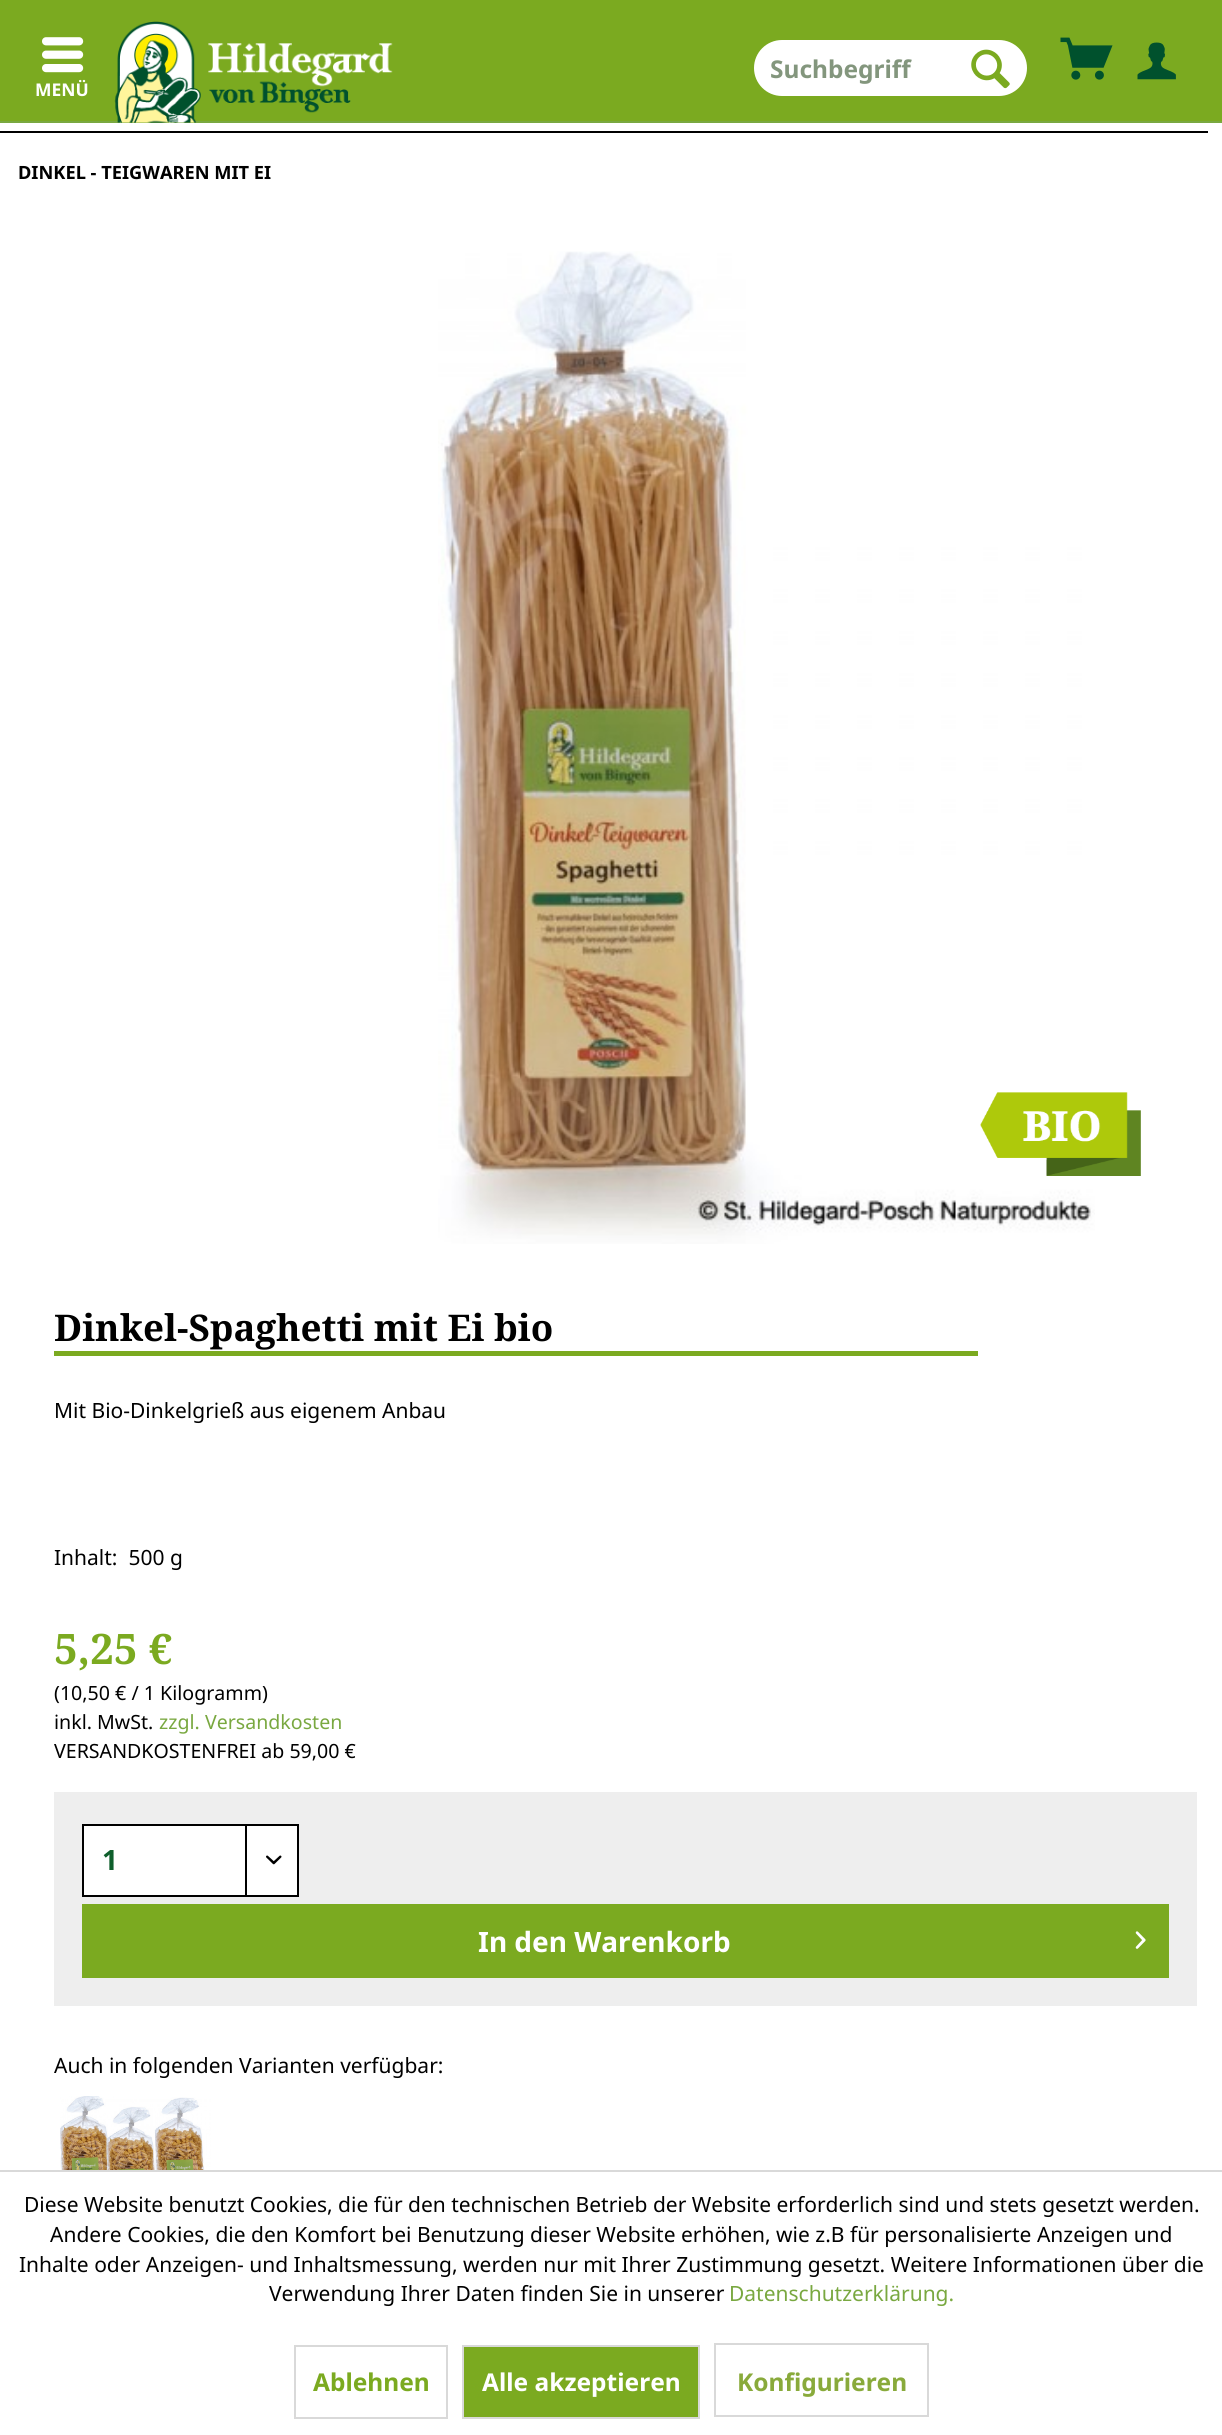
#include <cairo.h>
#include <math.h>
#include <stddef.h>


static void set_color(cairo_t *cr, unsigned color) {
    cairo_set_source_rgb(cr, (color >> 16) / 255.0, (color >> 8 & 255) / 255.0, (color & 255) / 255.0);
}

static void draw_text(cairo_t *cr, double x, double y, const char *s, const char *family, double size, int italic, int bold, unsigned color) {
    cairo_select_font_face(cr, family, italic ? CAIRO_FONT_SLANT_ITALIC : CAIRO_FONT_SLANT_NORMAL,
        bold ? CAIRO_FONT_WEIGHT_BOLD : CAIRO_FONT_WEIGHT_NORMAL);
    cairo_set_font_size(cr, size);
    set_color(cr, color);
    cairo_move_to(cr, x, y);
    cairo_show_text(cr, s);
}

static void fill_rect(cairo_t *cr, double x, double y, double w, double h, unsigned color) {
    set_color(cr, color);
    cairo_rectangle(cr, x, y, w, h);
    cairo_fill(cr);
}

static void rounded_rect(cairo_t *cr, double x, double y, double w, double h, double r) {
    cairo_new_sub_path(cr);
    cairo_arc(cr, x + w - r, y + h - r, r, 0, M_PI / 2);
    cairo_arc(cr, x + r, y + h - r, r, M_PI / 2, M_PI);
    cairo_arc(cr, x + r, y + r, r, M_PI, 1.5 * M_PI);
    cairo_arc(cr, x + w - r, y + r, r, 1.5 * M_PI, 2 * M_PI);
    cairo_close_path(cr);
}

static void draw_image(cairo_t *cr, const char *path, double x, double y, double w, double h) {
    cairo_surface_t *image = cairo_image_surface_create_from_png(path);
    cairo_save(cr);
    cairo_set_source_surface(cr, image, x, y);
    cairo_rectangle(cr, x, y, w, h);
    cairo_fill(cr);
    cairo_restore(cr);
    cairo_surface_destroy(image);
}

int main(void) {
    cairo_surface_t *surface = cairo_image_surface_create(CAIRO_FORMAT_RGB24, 1222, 2435);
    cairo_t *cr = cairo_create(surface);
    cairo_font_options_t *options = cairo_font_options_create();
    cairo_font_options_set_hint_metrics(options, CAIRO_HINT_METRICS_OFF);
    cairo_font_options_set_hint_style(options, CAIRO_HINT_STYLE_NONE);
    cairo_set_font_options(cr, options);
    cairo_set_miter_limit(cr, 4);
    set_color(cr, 0xFFFFFF);
    cairo_paint(cr);
    fill_rect(cr, 0, 0, 1222, 121, 0x7BAA20);
    fill_rect(cr, 0, 121, 1222, 2, 0x79A840);
    draw_image(cr, "assets/img1.png", 114, 21, 279, 102);
    set_color(cr, 0xFFFFFF);
    rounded_rect(cr, 754, 40, 273, 56, 28);
    cairo_fill(cr);
    draw_text(cr, 770, 78, "Suchbegriff", "Noto Sans", 24.5, 0, 1, 0x83967D);
    draw_image(cr, "assets/img2.png", 971, 49, 39, 40);
    draw_image(cr, "assets/img3.png", 1060, 37, 53, 43);
    draw_image(cr, "assets/img4.png", 1137, 42, 39, 38);
    draw_image(cr, "assets/img5.png", 42, 37, 42, 36);
    draw_text(cr, 35, 96, "MENÜ", "Noto Sans", 17.5, 0, 1, 0xFFFFFF);
    fill_rect(cr, 0, 131, 1208, 2, 0x000000);
    draw_text(cr, 18, 179, "DINKEL - TEIGWAREN MIT EI", "Noto Sans", 18.25, 0, 1, 0x000000);
    draw_image(cr, "assets/img6.png", 438, 251, 657, 993);
    draw_image(cr, "assets/img7.png", 980, 1092, 161, 84);
    fill_rect(cr, 54, 1351, 924, 5, 0x7BAA20);
    draw_text(cr, 54, 1341, "Dinkel-Spaghetti mit Ei bio", "Noto Serif", 36.75, 0, 1, 0x000000);
    draw_text(cr, 54, 1418, "Mit Bio-Dinkelgrieß aus eigenem Anbau", "Noto Sans", 21, 0, 0, 0x000000);
    draw_text(cr, 54, 1565, "Inhalt:  500 g", "Noto Sans", 21, 0, 0, 0x000000);
    draw_text(cr, 54, 1664, "5,25 €", "Noto Serif", 42, 0, 1, 0x7BAA20);
    draw_text(cr, 54, 1700, "(10,50 € / 1 Kilogramm)", "Noto Sans", 19.6, 0, 0, 0x000000);
    draw_text(cr, 54, 1729, "inkl. MwSt.", "Noto Sans", 19.6, 0, 0, 0x000000);
    draw_text(cr, 159, 1729, "zzgl. Versandkosten", "Noto Sans", 19.6, 0, 0, 0x79A840);
    draw_text(cr, 54, 1758, "VERSANDKOSTENFREI ab 59,00 €", "Noto Sans", 19.6, 0, 0, 0x000000);
    fill_rect(cr, 54, 1792, 1143, 214, 0xEEEEEE);
    set_color(cr, 0xFFFFFF);
    cairo_rectangle(cr, 83, 1825, 215, 71);
    cairo_fill_preserve(cr);
    set_color(cr, 0x000000);
    cairo_stroke(cr);
    draw_text(cr, 102, 1870, "1", "Noto Sans", 28, 0, 1, 0x0F5F2C);
    fill_rect(cr, 245, 1825, 2, 70, 0x000000);
    draw_image(cr, "assets/img8.png", 266, 1855, 16, 10);
    fill_rect(cr, 82, 1904, 1087, 74, 0x7BAA20);
    draw_text(cr, 478, 1952, "In den Warenkorb", "Noto Sans", 28, 0, 1, 0xFFFFFF);
    draw_image(cr, "assets/img9.png", 1135, 1931, 11, 18);
    draw_text(cr, 54, 2073, "Auch in folgenden Varianten verfügbar:", "Noto Sans", 21, 0, 0, 0x000000);
    draw_image(cr, "assets/img10.png", 60, 2096, 151, 74);
    fill_rect(cr, 0, 2170, 1222, 2, 0xD9D9D9);
    draw_text(cr, 24, 2212, "Diese Website benutzt Cookies, die für den technischen Betrieb der Website erforderlich sind und stets gesetzt werden.", "Noto Sans", 21, 0, 0, 0x000000);
    draw_text(cr, 50, 2242, "Andere Cookies, die den Komfort bei Benutzung dieser Website erhöhen, wie z.B für personalisierte Anzeigen und", "Noto Sans", 21, 0, 0, 0x000000);
    draw_text(cr, 19, 2272, "Inhalte oder Anzeigen- und Inhaltsmessung, werden nur mit Ihrer Zustimmung gesetzt. Weitere Informationen über die", "Noto Sans", 21, 0, 0, 0x000000);
    draw_text(cr, 269, 2301, "Verwendung Ihrer Daten finden Sie in unserer", "Noto Sans", 21, 0, 0, 0x000000);
    draw_text(cr, 729, 2301, "Datenschutzerklärung.", "Noto Sans", 21, 0, 0, 0x79A840);
    cairo_rectangle(cr, 295, 2346, 152, 72);
    set_color(cr, 0xD9D9D9);
    cairo_stroke(cr);
    draw_text(cr, 313, 2391, "Ablehnen", "Noto Sans", 24.5, 0, 1, 0x7BAA20);
    cairo_rectangle(cr, 463, 2346, 236, 72);
    cairo_fill_preserve(cr);
    set_color(cr, 0xD9D9D9);
    cairo_stroke(cr);
    draw_text(cr, 482, 2391, "Alle akzeptieren", "Noto Sans", 24.5, 0, 1, 0xFFFFFF);
    cairo_rectangle(cr, 715, 2344, 213, 72);
    set_color(cr, 0xD9D9D9);
    cairo_stroke(cr);
    draw_text(cr, 737, 2391, "Konfigurieren", "Noto Sans", 24.5, 0, 1, 0x89AA3B);
    cairo_surface_write_to_png(surface, "output.png");
    cairo_font_options_destroy(options);
    cairo_destroy(cr);
    cairo_surface_destroy(surface);
    return 0;
}
